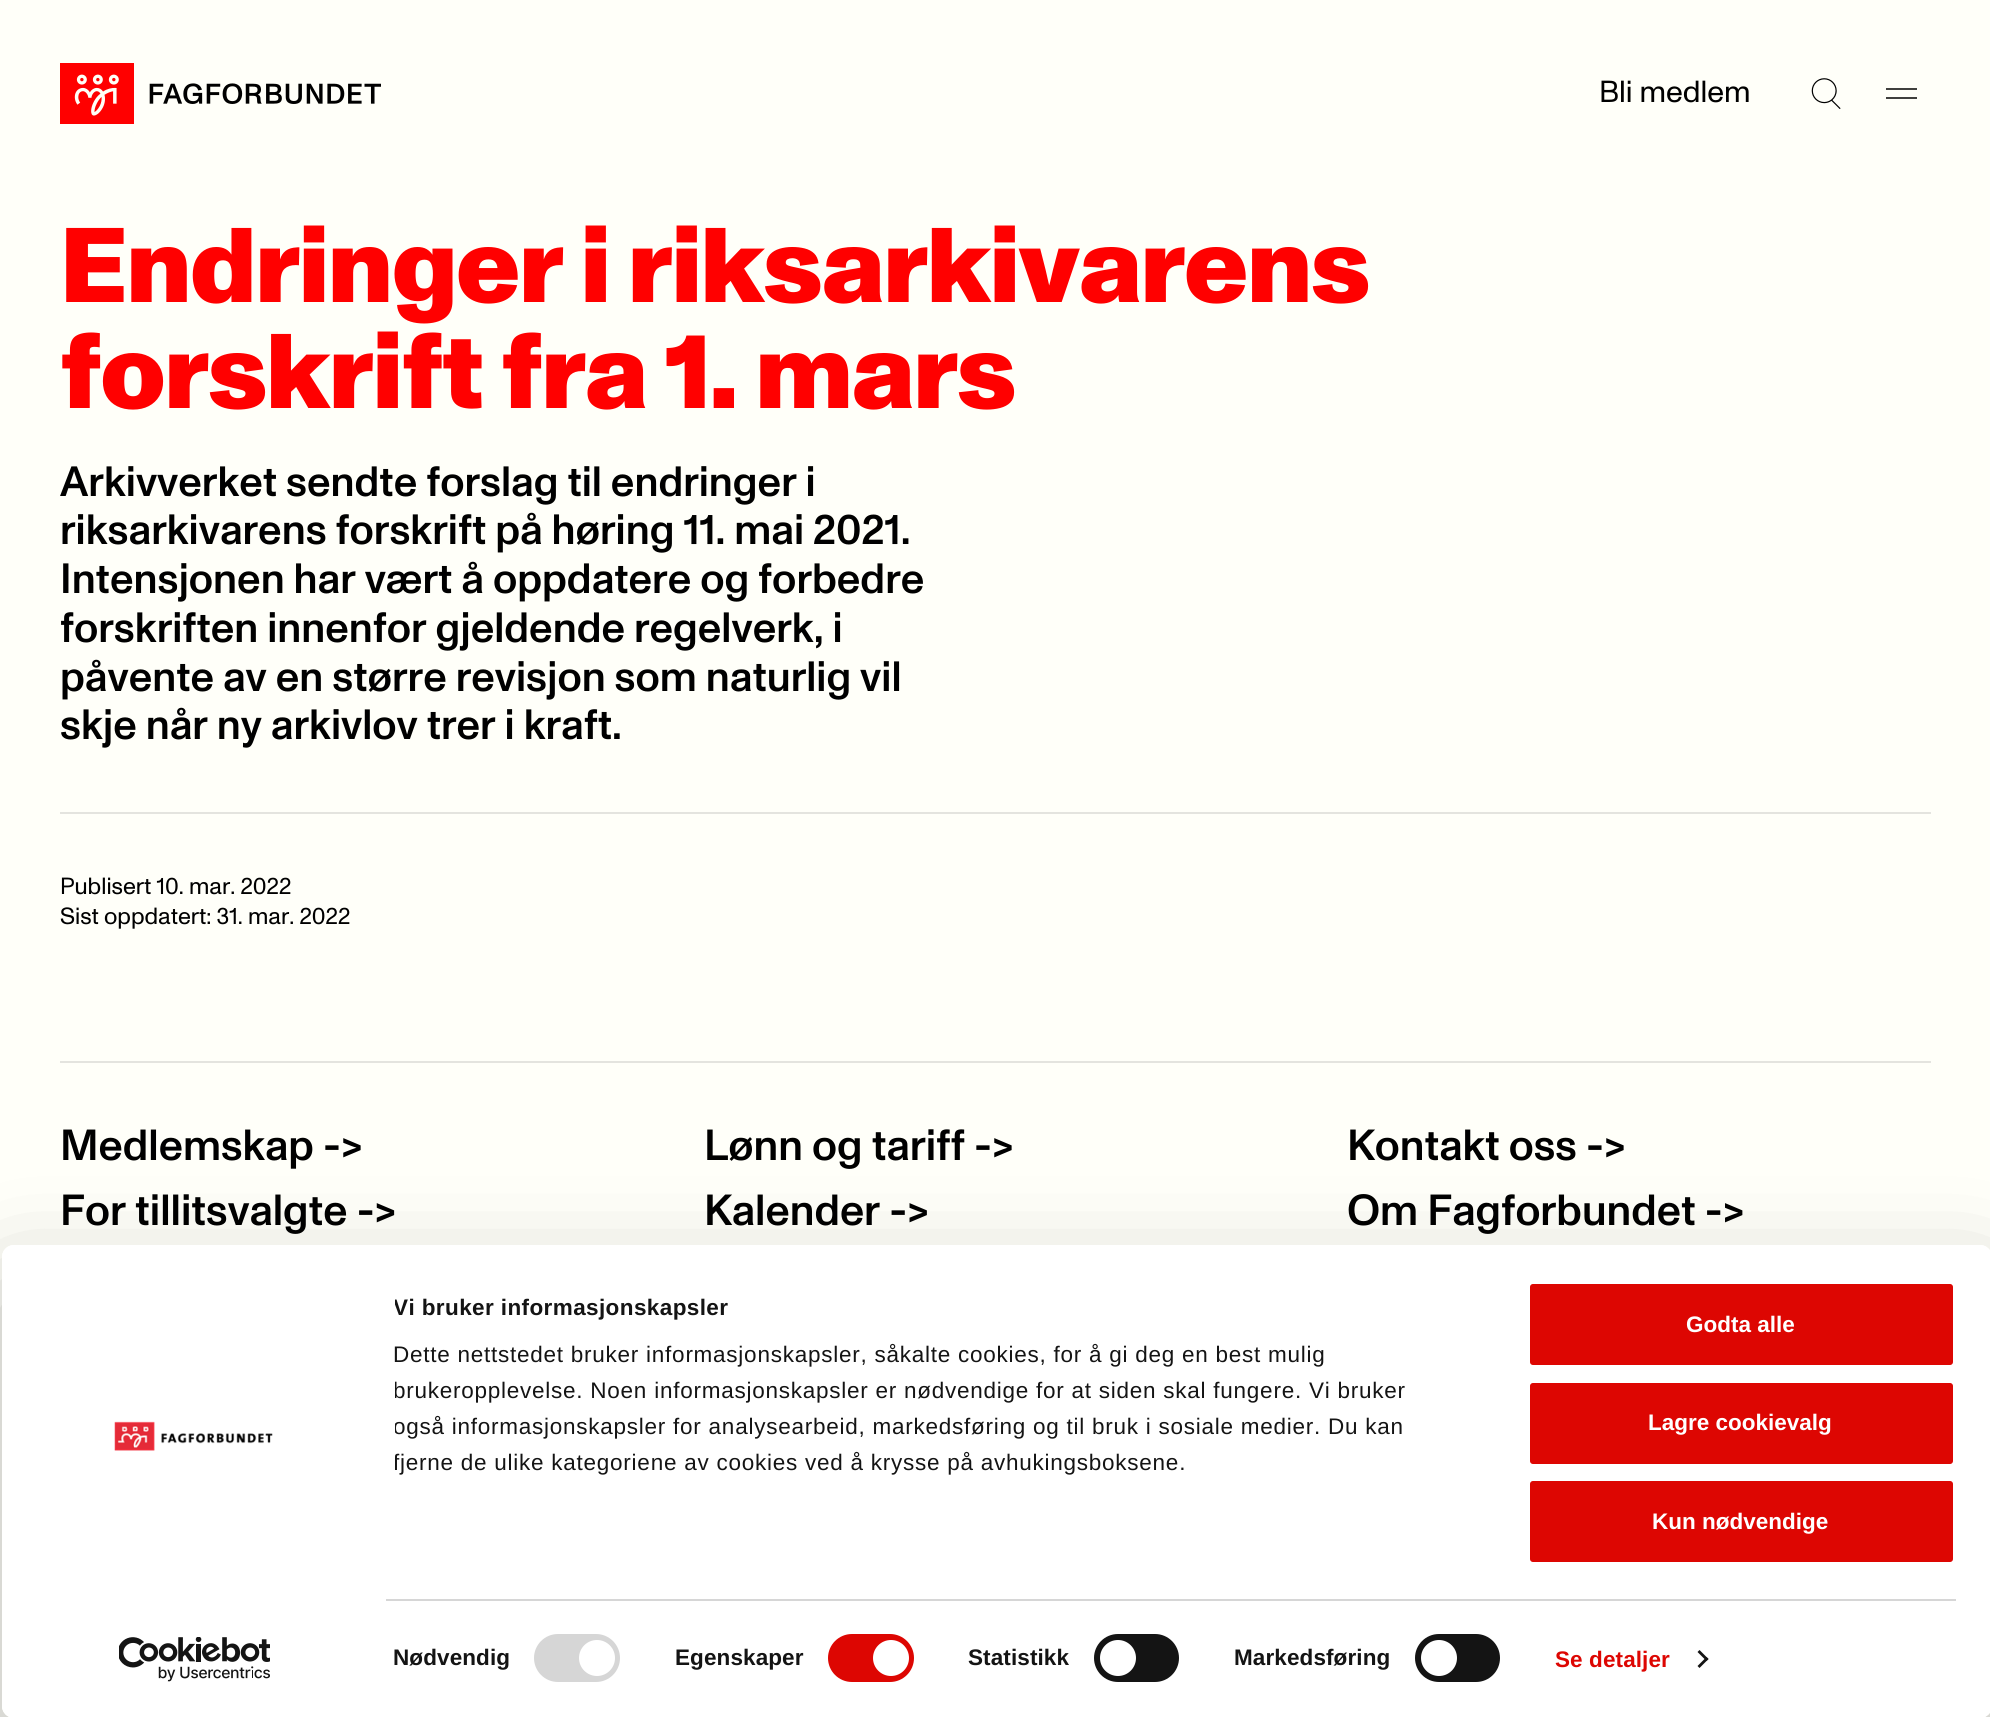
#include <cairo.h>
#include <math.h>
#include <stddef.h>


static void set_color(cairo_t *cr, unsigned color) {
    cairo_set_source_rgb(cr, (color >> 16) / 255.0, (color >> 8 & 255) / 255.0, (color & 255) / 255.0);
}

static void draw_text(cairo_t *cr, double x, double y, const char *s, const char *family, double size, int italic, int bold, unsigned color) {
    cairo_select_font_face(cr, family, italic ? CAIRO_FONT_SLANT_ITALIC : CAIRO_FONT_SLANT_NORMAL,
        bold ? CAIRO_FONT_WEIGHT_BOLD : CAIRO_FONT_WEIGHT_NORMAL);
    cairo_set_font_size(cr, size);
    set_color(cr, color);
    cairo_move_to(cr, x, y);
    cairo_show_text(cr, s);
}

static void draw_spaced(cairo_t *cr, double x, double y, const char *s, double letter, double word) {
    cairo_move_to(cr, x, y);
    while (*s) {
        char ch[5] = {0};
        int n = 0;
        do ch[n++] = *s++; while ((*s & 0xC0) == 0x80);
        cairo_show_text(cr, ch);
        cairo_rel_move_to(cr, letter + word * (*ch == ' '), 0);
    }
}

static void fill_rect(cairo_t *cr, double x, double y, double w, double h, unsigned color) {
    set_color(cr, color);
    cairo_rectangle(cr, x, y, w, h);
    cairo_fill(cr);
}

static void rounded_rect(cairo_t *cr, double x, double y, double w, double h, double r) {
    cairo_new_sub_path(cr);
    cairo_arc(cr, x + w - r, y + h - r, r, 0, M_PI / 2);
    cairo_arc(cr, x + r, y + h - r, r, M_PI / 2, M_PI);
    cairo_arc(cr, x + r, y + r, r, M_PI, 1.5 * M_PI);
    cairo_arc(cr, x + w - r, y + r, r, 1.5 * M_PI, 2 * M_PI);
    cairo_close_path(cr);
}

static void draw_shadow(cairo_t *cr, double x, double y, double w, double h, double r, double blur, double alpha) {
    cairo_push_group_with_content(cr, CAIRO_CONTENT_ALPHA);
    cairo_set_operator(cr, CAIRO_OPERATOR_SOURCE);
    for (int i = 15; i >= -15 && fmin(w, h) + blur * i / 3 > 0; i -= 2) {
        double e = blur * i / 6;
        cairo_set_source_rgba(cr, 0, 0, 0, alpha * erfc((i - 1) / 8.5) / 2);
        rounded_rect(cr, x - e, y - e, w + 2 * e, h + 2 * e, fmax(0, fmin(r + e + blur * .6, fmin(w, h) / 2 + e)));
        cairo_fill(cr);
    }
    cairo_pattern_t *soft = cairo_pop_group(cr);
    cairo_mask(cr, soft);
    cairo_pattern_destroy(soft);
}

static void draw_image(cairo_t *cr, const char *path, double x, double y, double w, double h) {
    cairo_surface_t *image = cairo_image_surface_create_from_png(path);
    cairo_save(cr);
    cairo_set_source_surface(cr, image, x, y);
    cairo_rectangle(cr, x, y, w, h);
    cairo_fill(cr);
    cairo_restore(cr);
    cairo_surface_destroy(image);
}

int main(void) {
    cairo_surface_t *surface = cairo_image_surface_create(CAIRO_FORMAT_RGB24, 1990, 1717);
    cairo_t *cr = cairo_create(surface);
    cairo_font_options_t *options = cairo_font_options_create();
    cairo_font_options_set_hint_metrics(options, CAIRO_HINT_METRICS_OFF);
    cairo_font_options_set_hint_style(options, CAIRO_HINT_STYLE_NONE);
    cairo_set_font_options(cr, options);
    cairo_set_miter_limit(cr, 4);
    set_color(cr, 0xFFFFF9);
    cairo_paint(cr);
    draw_image(cr, "assets/img1.png", 60, 63, 321, 61);
    draw_text(cr, 1599, 102, "Bli medlem", "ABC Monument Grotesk", 30.5, 0, 0, 0x000000);
    draw_image(cr, "assets/img2.png", 1811, 78, 30, 31);
    fill_rect(cr, 1886, 88, 31, 2, 0x40403E);
    fill_rect(cr, 1886, 97, 31, 2, 0x40403E);
    cairo_select_font_face(cr, "ABC Monument Grotesk Black", CAIRO_FONT_SLANT_NORMAL, CAIRO_FONT_WEIGHT_NORMAL);
    cairo_set_font_size(cr, 105.8);
    set_color(cr, 0xFF0000);
    draw_spaced(cr, 60, 302, "Endringer i riksarkivarens", -1.4, 0);
    draw_spaced(cr, 60, 408, "forskrift fra 1. mars", -1.4, 0);
    draw_text(cr, 60, 496, "Arkivverket sendte forslag til endringer i", "ABC Monument Grotesk Medium", 42.3, 0, 0, 0x000000);
    draw_text(cr, 60, 544, "riksarkivarens forskrift på høring 11. mai 2021.", "ABC Monument Grotesk Medium", 42.3, 0, 0, 0x000000);
    draw_text(cr, 60, 593, "Intensjonen har vært å oppdatere og forbedre", "ABC Monument Grotesk Medium", 42.3, 0, 0, 0x000000);
    draw_text(cr, 60, 642, "forskriften innenfor gjeldende regelverk, i", "ABC Monument Grotesk Medium", 42.3, 0, 0, 0x000000);
    draw_text(cr, 60, 691, "påvente av en større revisjon som naturlig vil", "ABC Monument Grotesk Medium", 42.3, 0, 0, 0x000000);
    draw_text(cr, 60, 739, "skje når ny arkivlov trer i kraft.", "ABC Monument Grotesk Medium", 42.3, 0, 0, 0x000000);
    fill_rect(cr, 60, 812, 1871, 2, 0xE4E4DF);
    draw_text(cr, 60, 894, "Publisert 10. mar. 2022", "ABC Monument Grotesk", 23.4, 0, 0, 0x000000);
    draw_text(cr, 60, 924, "Sist oppdatert: 31. mar. 2022", "ABC Monument Grotesk", 23.4, 0, 0, 0x000000);
    fill_rect(cr, 60, 1061, 1871, 2, 0xE4E4DF);
    draw_text(cr, 60, 1160, "Medlemskap ->", "ABC Monument Grotesk Medium", 43.5, 0, 0, 0x000000);
    draw_text(cr, 704, 1160, "Lønn og tariff ->", "ABC Monument Grotesk Medium", 43.5, 0, 0, 0x000000);
    draw_text(cr, 1347, 1160, "Kontakt oss ->", "ABC Monument Grotesk Medium", 43.5, 0, 0, 0x000000);
    draw_text(cr, 60, 1225, "For tillitsvalgte ->", "ABC Monument Grotesk Medium", 43.5, 0, 0, 0x000000);
    draw_text(cr, 704, 1225, "Kalender ->", "ABC Monument Grotesk Medium", 43.5, 0, 0, 0x000000);
    draw_text(cr, 1347, 1225, "Om Fagforbundet ->", "ABC Monument Grotesk Medium", 43.5, 0, 0, 0x000000);
    cairo_save(cr);
    cairo_set_fill_rule(cr, CAIRO_FILL_RULE_EVEN_ODD);
    cairo_new_path(cr);
    cairo_move_to(cr, 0, 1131);
    cairo_line_to(cr, 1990, 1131);
    cairo_line_to(cr, 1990, 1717);
    cairo_line_to(cr, 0, 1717);
    cairo_close_path(cr);
    cairo_move_to(cr, 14, 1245);
    cairo_line_to(cr, 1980, 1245);
    cairo_curve_to(cr, 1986.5, 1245, 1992, 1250.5, 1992, 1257);
    cairo_line_to(cr, 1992, 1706);
    cairo_curve_to(cr, 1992, 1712.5, 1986.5, 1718, 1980, 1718);
    cairo_line_to(cr, 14, 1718);
    cairo_curve_to(cr, 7.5, 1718, 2, 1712.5, 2, 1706);
    cairo_line_to(cr, 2, 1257);
    cairo_curve_to(cr, 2, 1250.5, 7.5, 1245, 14, 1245);
    cairo_close_path(cr);
    cairo_clip(cr);
    set_color(cr, 0x000000);
    draw_shadow(cr, 2, 1290, 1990, 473, 12, 52.5, 0.3);
    cairo_restore(cr);
    set_color(cr, 0xFFFFFF);
    rounded_rect(cr, 2, 1245, 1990, 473, 12);
    cairo_fill(cr);
    draw_image(cr, "assets/img3.png", 114, 1421, 159, 30);
    draw_image(cr, "assets/img4.png", 119, 1637, 151, 45);
    cairo_save(cr);
    cairo_rectangle(cr, 395, 1290, 1089, 266);
    cairo_clip(cr);
    cairo_select_font_face(cr, "Liberation Sans", CAIRO_FONT_SLANT_NORMAL, CAIRO_FONT_WEIGHT_BOLD);
    cairo_set_font_size(cr, 22.5);
    set_color(cr, 0x141414);
    draw_spaced(cr, 393, 1315, "Vi bruker informasjonskapsler", 0.4, 0);
    cairo_restore(cr);
    cairo_select_font_face(cr, "Liberation Sans", CAIRO_FONT_SLANT_NORMAL, CAIRO_FONT_WEIGHT_NORMAL);
    cairo_set_font_size(cr, 22.5);
    set_color(cr, 0x141414);
    draw_spaced(cr, 393, 1362, "Dette nettstedet bruker informasjonskapsler, såkalte cookies, for å gi deg en best mulig", 0.75, 0);
    cairo_save(cr);
    cairo_rectangle(cr, 395, 1290, 1089, 266);
    cairo_clip(cr);
    draw_spaced(cr, 393, 1398, "brukeropplevelse. Noen informasjonskapsler er nødvendige for at siden skal fungere. Vi bruker", 0.75, 0);
    draw_spaced(cr, 393, 1434, "også informasjonskapsler for analysearbeid, markedsføring og til bruk i sosiale medier. Du kan", 0.75, 0);
    draw_spaced(cr, 393, 1470, "fjerne de ulike kategoriene av cookies ved å krysse på avhukingsboksene.", 0.75, 0);
    cairo_restore(cr);
    fill_rect(cr, 386, 1599, 1570, 2, 0xD6D6D6);
    cairo_select_font_face(cr, "Liberation Sans", CAIRO_FONT_SLANT_NORMAL, CAIRO_FONT_WEIGHT_BOLD);
    set_color(cr, 0x141414);
    draw_spaced(cr, 393, 1665, "Nødvendig", 0.1, 0);
    set_color(cr, 0xD6D6D6);
    rounded_rect(cr, 534, 1634, 86, 48, 24);
    cairo_fill(cr);
    set_color(cr, 0xFFFFFF);
    cairo_arc(cr, 597, 1658, 18, 0, 2 * M_PI);
    cairo_fill(cr);
    set_color(cr, 0x141414);
    draw_spaced(cr, 675, 1665, "Egenskaper", 0.1, 0);
    set_color(cr, 0xDD0602);
    rounded_rect(cr, 828, 1634, 86, 48, 24);
    cairo_fill(cr);
    set_color(cr, 0xFFFFFF);
    cairo_arc(cr, 891, 1658, 18, 0, 2 * M_PI);
    cairo_fill(cr);
    set_color(cr, 0x141414);
    draw_spaced(cr, 968, 1665, "Statistikk", 0.1, 0);
    rounded_rect(cr, 1094, 1634, 85, 48, 24);
    cairo_fill(cr);
    set_color(cr, 0xFFFFFF);
    cairo_arc(cr, 1118, 1658, 18, 0, 2 * M_PI);
    cairo_fill(cr);
    set_color(cr, 0x141414);
    draw_spaced(cr, 1234, 1665, "Markedsføring", 0.1, 0);
    rounded_rect(cr, 1415, 1634, 85, 48, 24);
    cairo_fill(cr);
    set_color(cr, 0xFFFFFF);
    cairo_arc(cr, 1439, 1658, 18, 0, 2 * M_PI);
    cairo_fill(cr);
    set_color(cr, 0xDD0602);
    draw_spaced(cr, 1555, 1667, "Se detaljer", 0.1, 0);
    set_color(cr, 0x141414);
    cairo_new_path(cr);
    cairo_move_to(cr, 1699.5, 1650);
    cairo_line_to(cr, 1708.5, 1659);
    cairo_line_to(cr, 1706.5, 1661);
    cairo_line_to(cr, 1697.5, 1652);
    cairo_close_path(cr);
    cairo_fill(cr);
    cairo_new_path(cr);
    cairo_move_to(cr, 1706.5, 1657);
    cairo_line_to(cr, 1708.5, 1659);
    cairo_line_to(cr, 1699.5, 1668);
    cairo_line_to(cr, 1697.5, 1666);
    cairo_close_path(cr);
    cairo_fill(cr);
    set_color(cr, 0xDD0602);
    rounded_rect(cr, 1528.5, 1282.5, 426, 84, 4.5);
    cairo_fill_preserve(cr);
    set_color(cr, 0xFFFFFF);
    cairo_set_line_width(cr, 3);
    cairo_stroke(cr);
    draw_text(cr, 1686, 1332, "Godta alle", "Liberation Sans", 22.5, 0, 1, 0xFFFFFF);
    set_color(cr, 0xDD0602);
    rounded_rect(cr, 1528.5, 1381.5, 426, 84, 4.5);
    cairo_fill_preserve(cr);
    set_color(cr, 0xFFFFFF);
    cairo_stroke(cr);
    draw_text(cr, 1648, 1430, "Lagre cookievalg", "Liberation Sans", 22.5, 0, 1, 0xFFFFFF);
    set_color(cr, 0xDD0602);
    rounded_rect(cr, 1528.5, 1479.5, 426, 84, 4.5);
    cairo_fill_preserve(cr);
    set_color(cr, 0xFFFFFF);
    cairo_stroke(cr);
    draw_text(cr, 1652, 1529, "Kun nødvendige", "Liberation Sans", 22.5, 0, 1, 0xFFFFFF);
    cairo_surface_write_to_png(surface, "output.png");
    cairo_font_options_destroy(options);
    cairo_destroy(cr);
    cairo_surface_destroy(surface);
    return 0;
}
